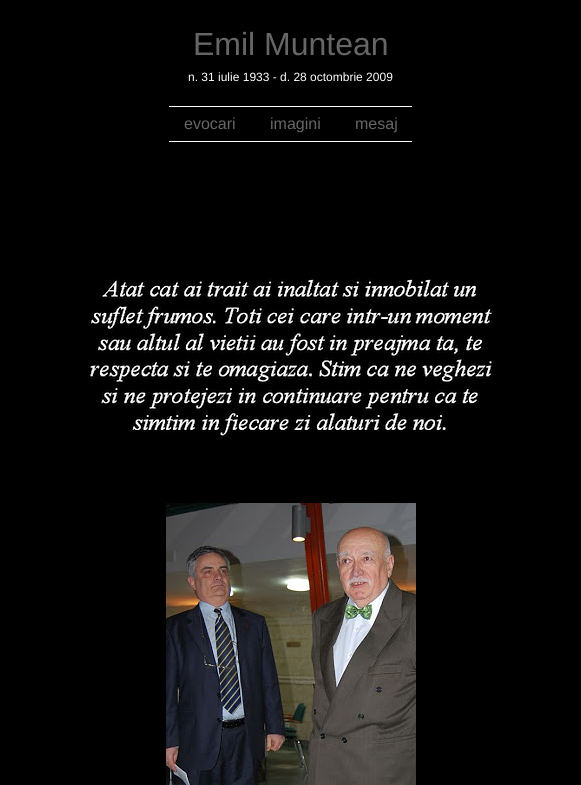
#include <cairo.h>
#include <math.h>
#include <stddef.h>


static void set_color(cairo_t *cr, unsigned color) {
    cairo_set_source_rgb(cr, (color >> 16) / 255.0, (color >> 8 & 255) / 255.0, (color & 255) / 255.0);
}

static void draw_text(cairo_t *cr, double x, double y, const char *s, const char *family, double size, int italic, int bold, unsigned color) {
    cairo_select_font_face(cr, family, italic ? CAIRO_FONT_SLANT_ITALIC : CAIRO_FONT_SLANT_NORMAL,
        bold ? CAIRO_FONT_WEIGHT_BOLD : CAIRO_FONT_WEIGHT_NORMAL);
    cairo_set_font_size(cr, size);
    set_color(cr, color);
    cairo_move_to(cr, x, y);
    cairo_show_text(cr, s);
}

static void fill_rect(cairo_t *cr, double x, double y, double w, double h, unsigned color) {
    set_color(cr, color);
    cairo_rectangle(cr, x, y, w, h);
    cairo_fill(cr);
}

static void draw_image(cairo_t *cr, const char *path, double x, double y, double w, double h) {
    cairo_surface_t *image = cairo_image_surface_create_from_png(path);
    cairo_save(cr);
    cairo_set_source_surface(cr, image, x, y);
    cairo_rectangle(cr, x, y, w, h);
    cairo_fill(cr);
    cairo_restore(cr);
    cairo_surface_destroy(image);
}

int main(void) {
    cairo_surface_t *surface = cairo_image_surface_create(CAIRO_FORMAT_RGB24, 581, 785);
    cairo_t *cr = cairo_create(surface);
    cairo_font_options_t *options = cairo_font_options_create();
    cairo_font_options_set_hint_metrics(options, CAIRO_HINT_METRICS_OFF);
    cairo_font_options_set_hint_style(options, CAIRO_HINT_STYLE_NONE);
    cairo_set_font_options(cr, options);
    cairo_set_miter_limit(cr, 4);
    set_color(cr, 0x000000);
    cairo_paint(cr);
    draw_text(cr, 193, 55, "Emil Muntean", "Liberation Sans", 32, 0, 0, 0x666666);
    draw_text(cr, 188, 81, "n. 31 iulie 1933 - d. 28 octombrie 2009", "Liberation Sans", 12, 0, 0, 0xFFFFFF);
    fill_rect(cr, 169, 106, 243, 1, 0xFFFFFF);
    fill_rect(cr, 169, 141, 243, 1, 0xFFFFFF);
    draw_text(cr, 184, 129, "evocari", "Liberation Sans", 16, 0, 0, 0x666666);
    draw_text(cr, 270, 129, "imagini", "Liberation Sans", 16, 0, 0, 0x666666);
    draw_text(cr, 355, 129, "mesaj", "Liberation Sans", 16, 0, 0, 0x666666);
    draw_image(cr, "assets/img1.png", 88, 277, 406, 161);
    draw_image(cr, "assets/img2.png", 166, 503, 250, 282);
    cairo_surface_write_to_png(surface, "output.png");
    cairo_font_options_destroy(options);
    cairo_destroy(cr);
    cairo_surface_destroy(surface);
    return 0;
}
